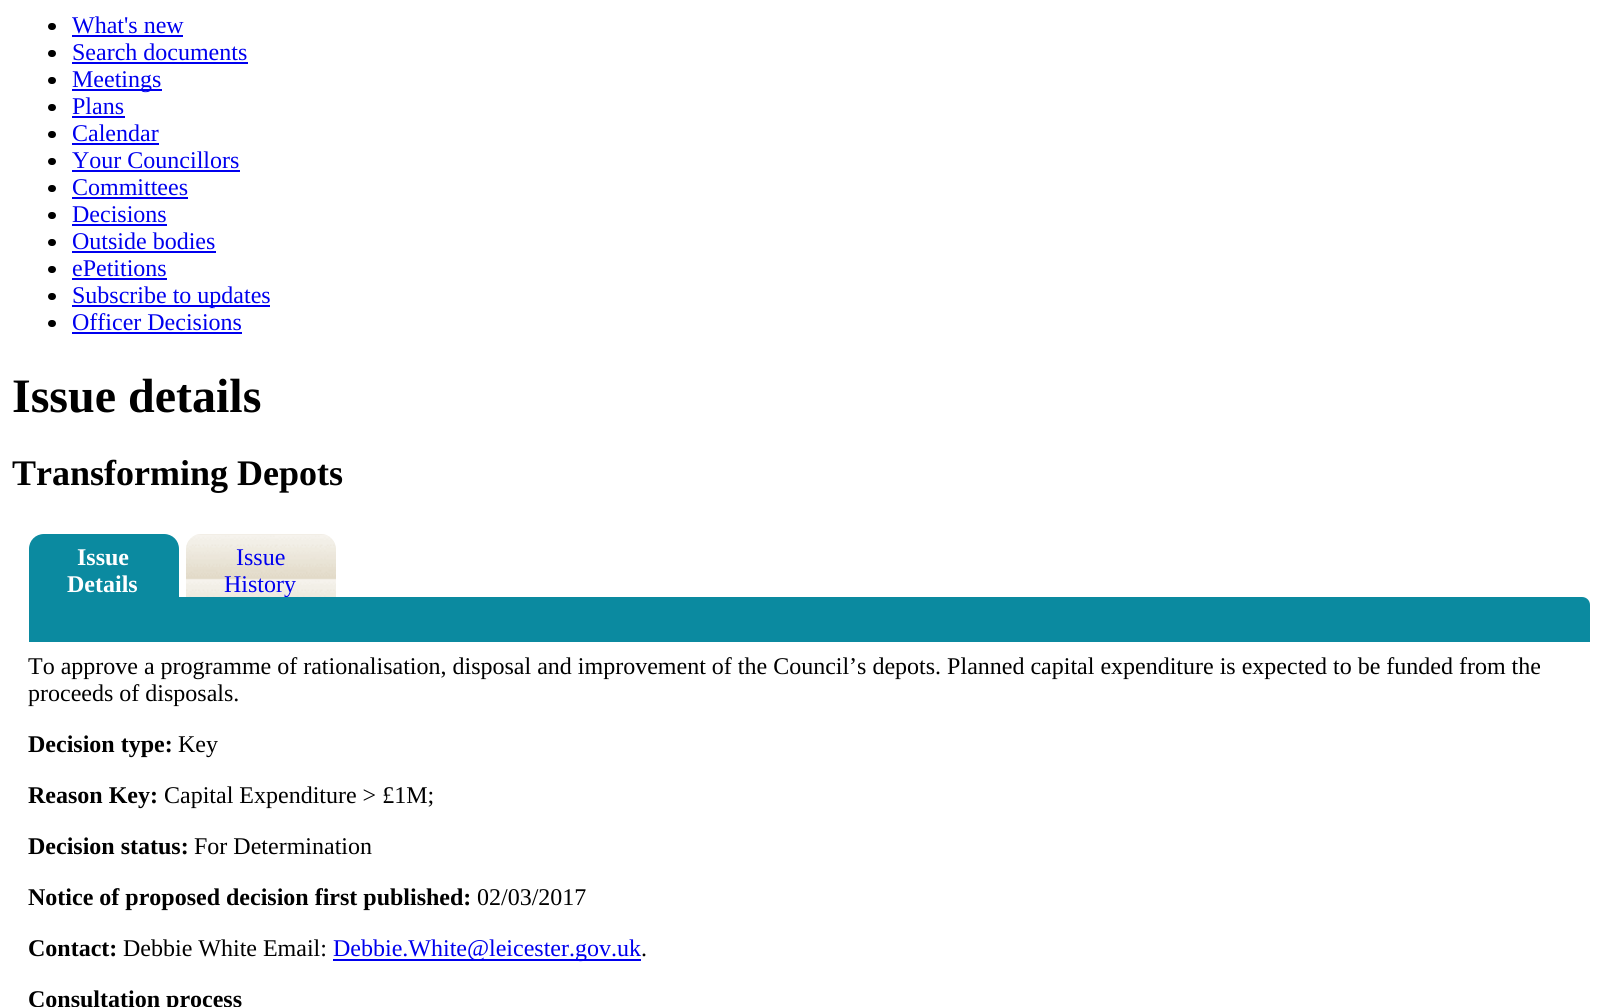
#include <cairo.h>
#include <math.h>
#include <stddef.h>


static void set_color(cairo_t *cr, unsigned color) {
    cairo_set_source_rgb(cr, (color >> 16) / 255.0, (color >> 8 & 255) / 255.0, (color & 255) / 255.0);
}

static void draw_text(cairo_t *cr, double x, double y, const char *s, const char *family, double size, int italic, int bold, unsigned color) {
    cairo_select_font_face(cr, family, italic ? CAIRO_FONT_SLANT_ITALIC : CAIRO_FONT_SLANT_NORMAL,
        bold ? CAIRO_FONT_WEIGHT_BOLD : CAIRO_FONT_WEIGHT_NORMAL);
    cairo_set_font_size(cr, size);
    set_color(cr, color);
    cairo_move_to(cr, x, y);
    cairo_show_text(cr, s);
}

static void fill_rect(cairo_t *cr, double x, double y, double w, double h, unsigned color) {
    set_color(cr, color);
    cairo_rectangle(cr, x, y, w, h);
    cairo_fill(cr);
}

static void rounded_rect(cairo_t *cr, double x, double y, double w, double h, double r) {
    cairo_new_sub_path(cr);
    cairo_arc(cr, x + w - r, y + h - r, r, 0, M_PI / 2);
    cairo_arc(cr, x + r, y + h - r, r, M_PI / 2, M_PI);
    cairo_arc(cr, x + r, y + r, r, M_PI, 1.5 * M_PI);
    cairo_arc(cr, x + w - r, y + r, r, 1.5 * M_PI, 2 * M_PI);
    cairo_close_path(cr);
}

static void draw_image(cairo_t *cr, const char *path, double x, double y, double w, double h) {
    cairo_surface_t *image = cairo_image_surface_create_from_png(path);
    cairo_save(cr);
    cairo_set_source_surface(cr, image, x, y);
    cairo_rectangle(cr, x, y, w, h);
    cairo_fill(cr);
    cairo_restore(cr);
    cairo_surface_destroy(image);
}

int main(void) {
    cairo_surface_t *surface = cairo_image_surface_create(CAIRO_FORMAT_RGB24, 1601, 1007);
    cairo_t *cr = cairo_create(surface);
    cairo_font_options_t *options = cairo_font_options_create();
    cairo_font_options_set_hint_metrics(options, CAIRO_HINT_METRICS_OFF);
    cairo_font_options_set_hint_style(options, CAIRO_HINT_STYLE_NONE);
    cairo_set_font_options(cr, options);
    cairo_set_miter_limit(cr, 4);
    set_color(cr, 0xFFFFFF);
    cairo_paint(cr);
    set_color(cr, 0x000000);
    rounded_rect(cr, 48, 23, 8, 7, 3.5);
    cairo_fill(cr);
    draw_text(cr, 72, 33, "What's new", "Liberation Serif", 24, 0, 0, 0x0000EE);
    fill_rect(cr, 72, 35, 111, 2, 0x0000EE);
    set_color(cr, 0x000000);
    rounded_rect(cr, 48, 50, 8, 7, 3.5);
    cairo_fill(cr);
    draw_text(cr, 72, 60, "Search documents", "Liberation Serif", 24, 0, 0, 0x0000EE);
    fill_rect(cr, 72, 62, 176, 2, 0x0000EE);
    set_color(cr, 0x000000);
    rounded_rect(cr, 48, 77, 8, 7, 3.5);
    cairo_fill(cr);
    fill_rect(cr, 72, 89, 90, 2, 0x0000EE);
    draw_text(cr, 72, 87, "Meetings", "Liberation Serif", 24, 0, 0, 0x0000EE);
    set_color(cr, 0x000000);
    rounded_rect(cr, 48, 104, 8, 7, 3.5);
    cairo_fill(cr);
    draw_text(cr, 72, 114, "Plans", "Liberation Serif", 24, 0, 0, 0x0000EE);
    fill_rect(cr, 72, 116, 53, 2, 0x0000EE);
    set_color(cr, 0x000000);
    rounded_rect(cr, 48, 131, 8, 7, 3.5);
    cairo_fill(cr);
    draw_text(cr, 72, 141, "Calendar", "Liberation Serif", 24, 0, 0, 0x0000EE);
    fill_rect(cr, 72, 143, 87, 2, 0x0000EE);
    set_color(cr, 0x000000);
    rounded_rect(cr, 48, 158, 8, 7, 3.5);
    cairo_fill(cr);
    draw_text(cr, 72, 168, "Your Councillors", "Liberation Serif", 24, 0, 0, 0x0000EE);
    fill_rect(cr, 72, 170, 168, 2, 0x0000EE);
    set_color(cr, 0x000000);
    rounded_rect(cr, 48, 185, 8, 7, 3.5);
    cairo_fill(cr);
    draw_text(cr, 72, 195, "Committees", "Liberation Serif", 24, 0, 0, 0x0000EE);
    fill_rect(cr, 72, 197, 116, 2, 0x0000EE);
    set_color(cr, 0x000000);
    rounded_rect(cr, 48, 212, 8, 7, 3.5);
    cairo_fill(cr);
    draw_text(cr, 72, 222, "Decisions", "Liberation Serif", 24, 0, 0, 0x0000EE);
    fill_rect(cr, 72, 224, 95, 2, 0x0000EE);
    set_color(cr, 0x000000);
    rounded_rect(cr, 48, 239, 8, 7, 3.5);
    cairo_fill(cr);
    draw_text(cr, 72, 249, "Outside bodies", "Liberation Serif", 24, 0, 0, 0x0000EE);
    fill_rect(cr, 72, 251, 144, 2, 0x0000EE);
    set_color(cr, 0x000000);
    rounded_rect(cr, 48, 266, 8, 7, 3.5);
    cairo_fill(cr);
    draw_text(cr, 72, 276, "ePetitions", "Liberation Serif", 24, 0, 0, 0x0000EE);
    fill_rect(cr, 72, 278, 95, 2, 0x0000EE);
    set_color(cr, 0x000000);
    rounded_rect(cr, 48, 293, 8, 7, 3.5);
    cairo_fill(cr);
    fill_rect(cr, 72, 305, 198, 2, 0x0000EE);
    draw_text(cr, 72, 303, "Subscribe to updates", "Liberation Serif", 24, 0, 0, 0x0000EE);
    set_color(cr, 0x000000);
    rounded_rect(cr, 48, 320, 8, 7, 3.5);
    cairo_fill(cr);
    draw_text(cr, 72, 330, "Officer Decisions", "Liberation Serif", 24, 0, 0, 0x0000EE);
    fill_rect(cr, 72, 332, 170, 2, 0x0000EE);
    draw_text(cr, 12, 412, "Issue details", "Liberation Serif", 48, 0, 1, 0x000000);
    draw_text(cr, 12, 485, "Transforming Depots", "Liberation Serif", 36, 0, 1, 0x000000);
    set_color(cr, 0x0B8AA0);
    cairo_new_path(cr);
    cairo_move_to(cr, 44, 534);
    cairo_line_to(cr, 164, 534);
    cairo_curve_to(cr, 172.5, 534, 179, 540.5, 179, 549);
    cairo_line_to(cr, 179, 597);
    cairo_line_to(cr, 29, 597);
    cairo_line_to(cr, 29, 549);
    cairo_curve_to(cr, 29, 540.5, 35.5, 534, 44, 534);
    cairo_close_path(cr);
    cairo_fill(cr);
    draw_text(cr, 77, 565, "Issue", "Liberation Serif", 24, 0, 1, 0xFFFFFF);
    draw_text(cr, 67, 592, "Details", "Liberation Serif", 24, 0, 1, 0xFFFFFF);
    draw_image(cr, "assets/img1.png", 186, 534, 150, 63);
    draw_text(cr, 236, 565, "Issue", "Liberation Serif", 24, 0, 0, 0x0000EE);
    draw_text(cr, 224, 592, "History", "Liberation Serif", 24, 0, 0, 0x0000EE);
    set_color(cr, 0x0B8AA0);
    cairo_new_path(cr);
    cairo_move_to(cr, 29, 597);
    cairo_line_to(cr, 1582, 597);
    cairo_curve_to(cr, 1586.5, 597, 1590, 600.5, 1590, 605);
    cairo_line_to(cr, 1590, 642);
    cairo_line_to(cr, 29, 642);
    cairo_close_path(cr);
    cairo_fill(cr);
    draw_text(cr, 28, 674, "To approve a programme of rationalisation, disposal and improvement of the Council’s depots. Planned capital expenditure is expected to be funded from the", "Liberation Serif", 24, 0, 0, 0x000000);
    draw_text(cr, 28, 701, "proceeds of disposals.", "Liberation Serif", 24, 0, 0, 0x000000);
    draw_text(cr, 28, 752, "Decision type:", "Liberation Serif", 24, 0, 1, 0x000000);
    draw_text(cr, 178, 752, "Key", "Liberation Serif", 24, 0, 0, 0x000000);
    draw_text(cr, 28, 803, "Reason Key:", "Liberation Serif", 24, 0, 1, 0x000000);
    draw_text(cr, 164, 803, "Capital Expenditure > £1M;", "Liberation Serif", 24, 0, 0, 0x000000);
    draw_text(cr, 28, 854, "Decision status:", "Liberation Serif", 24, 0, 1, 0x000000);
    draw_text(cr, 194, 854, "For Determination", "Liberation Serif", 24, 0, 0, 0x000000);
    draw_text(cr, 28, 905, "Notice of proposed decision first published:", "Liberation Serif", 24, 0, 1, 0x000000);
    draw_text(cr, 477, 905, "02/03/2017", "Liberation Serif", 24, 0, 0, 0x000000);
    draw_text(cr, 28, 956, "Contact:", "Liberation Serif", 24, 0, 1, 0x000000);
    draw_text(cr, 123, 956, "Debbie White Email:", "Liberation Serif", 24, 0, 0, 0x000000);
    fill_rect(cr, 333, 959, 308, 2, 0x0000EE);
    draw_text(cr, 333, 956, "Debbie.White@leicester.gov.uk", "Liberation Serif", 24, 0, 0, 0x0000EE);
    draw_text(cr, 641, 956, ".", "Liberation Serif", 24, 0, 0, 0x000000);
    draw_text(cr, 28, 1007, "Consultation process", "Liberation Serif", 24, 0, 1, 0x000000);
    cairo_surface_write_to_png(surface, "output.png");
    cairo_font_options_destroy(options);
    cairo_destroy(cr);
    cairo_surface_destroy(surface);
    return 0;
}
